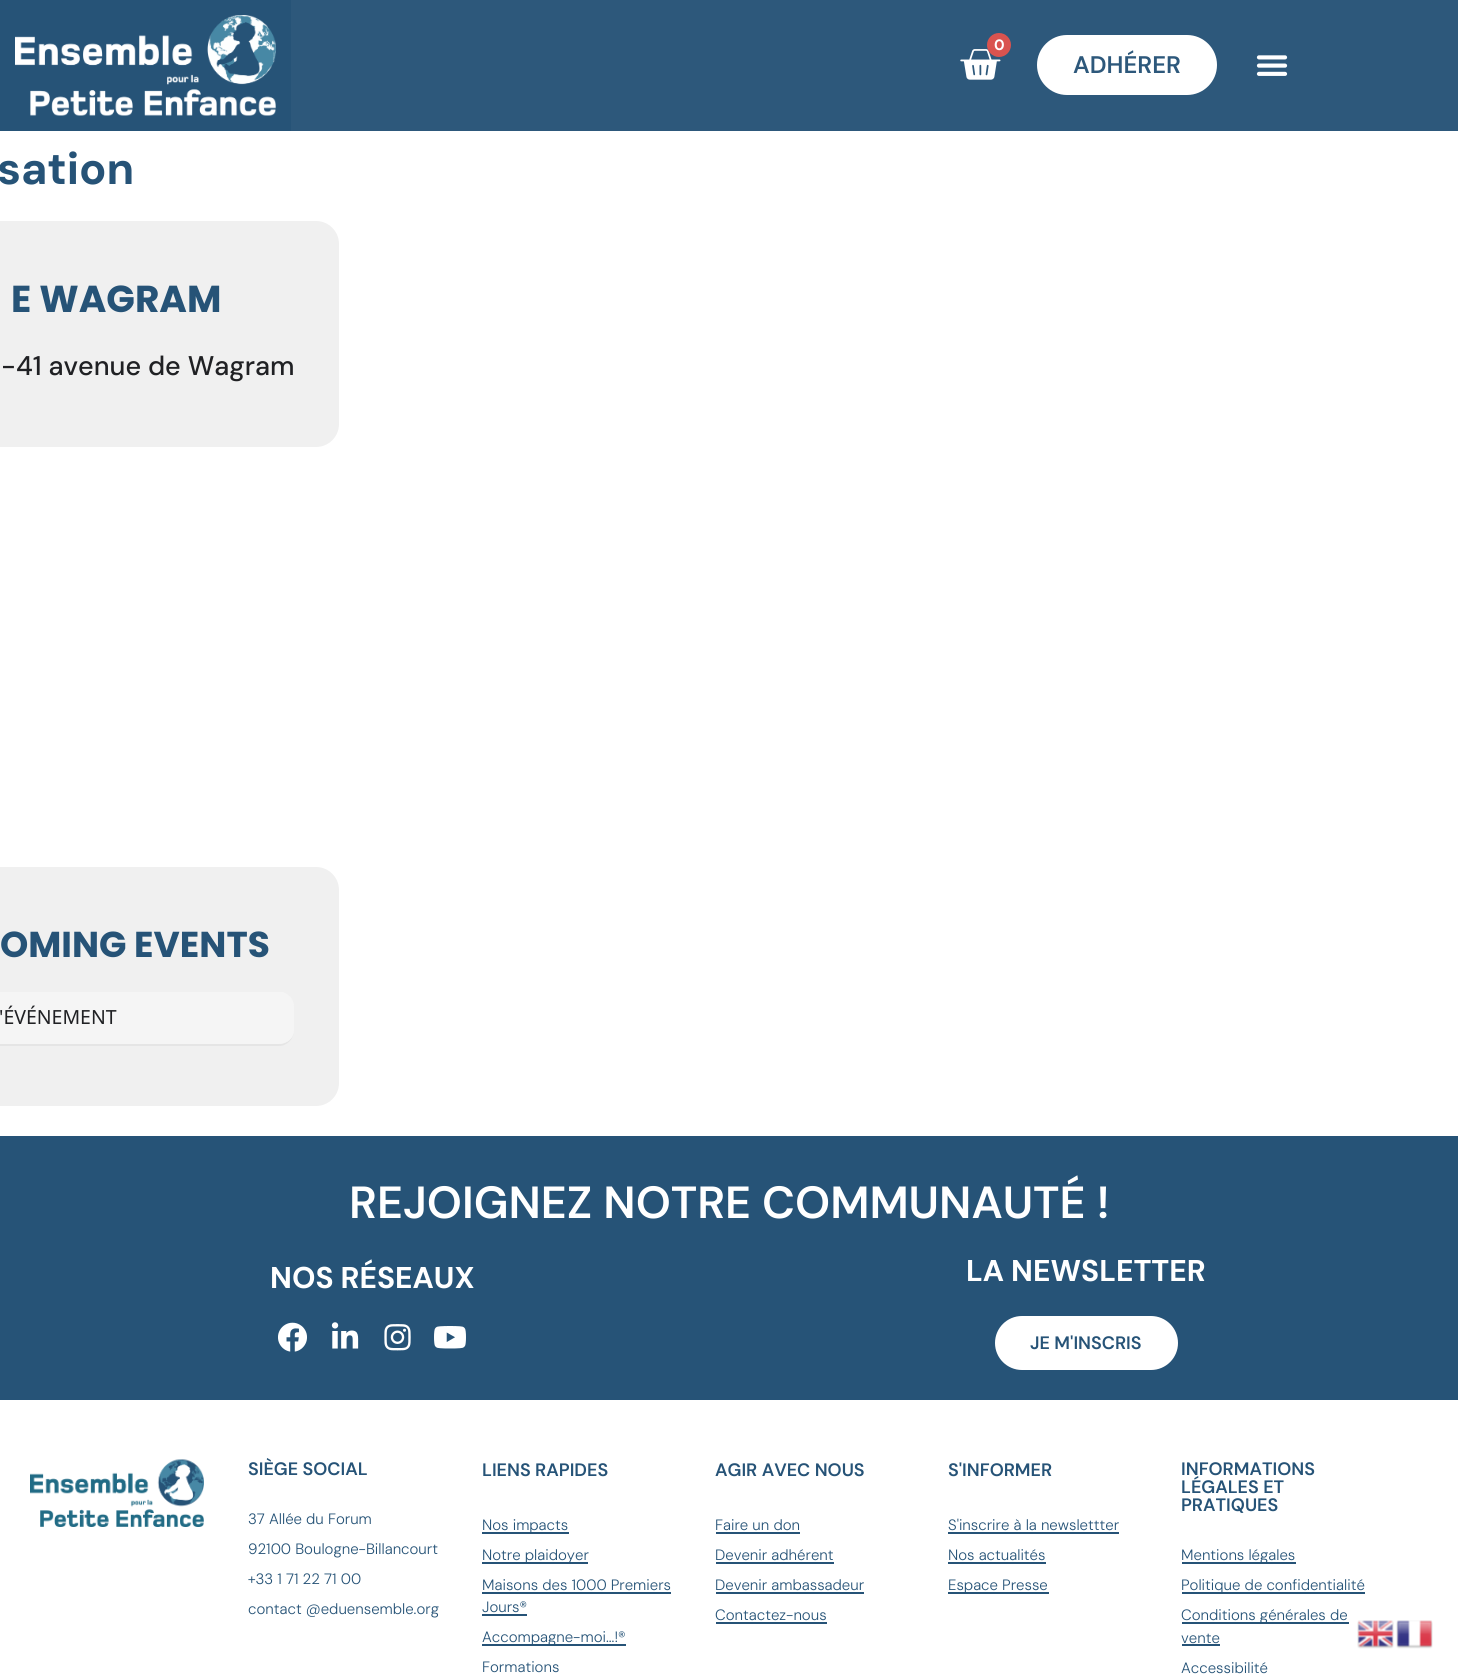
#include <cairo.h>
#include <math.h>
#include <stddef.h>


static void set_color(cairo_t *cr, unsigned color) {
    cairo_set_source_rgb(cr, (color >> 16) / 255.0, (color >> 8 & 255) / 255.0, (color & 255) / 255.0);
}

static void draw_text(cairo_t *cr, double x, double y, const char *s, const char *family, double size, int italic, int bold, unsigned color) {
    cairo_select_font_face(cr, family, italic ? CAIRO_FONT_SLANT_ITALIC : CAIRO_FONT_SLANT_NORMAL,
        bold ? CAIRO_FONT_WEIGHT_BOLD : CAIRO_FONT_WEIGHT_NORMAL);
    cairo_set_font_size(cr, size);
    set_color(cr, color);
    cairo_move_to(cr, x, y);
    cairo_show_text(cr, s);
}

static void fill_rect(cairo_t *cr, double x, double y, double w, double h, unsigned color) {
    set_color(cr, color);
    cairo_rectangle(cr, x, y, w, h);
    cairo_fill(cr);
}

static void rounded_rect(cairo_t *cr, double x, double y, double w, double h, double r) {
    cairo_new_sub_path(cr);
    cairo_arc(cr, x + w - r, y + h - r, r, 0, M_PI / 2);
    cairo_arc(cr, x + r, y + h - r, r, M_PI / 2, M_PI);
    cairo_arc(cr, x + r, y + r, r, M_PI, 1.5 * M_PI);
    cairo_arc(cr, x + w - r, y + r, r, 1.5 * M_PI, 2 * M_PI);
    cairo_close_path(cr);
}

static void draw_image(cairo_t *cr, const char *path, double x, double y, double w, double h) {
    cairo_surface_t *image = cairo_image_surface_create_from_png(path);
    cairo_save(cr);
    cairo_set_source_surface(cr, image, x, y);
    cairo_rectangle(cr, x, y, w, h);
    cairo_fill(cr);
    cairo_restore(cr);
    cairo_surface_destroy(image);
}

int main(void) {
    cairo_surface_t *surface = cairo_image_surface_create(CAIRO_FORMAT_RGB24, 1458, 1674);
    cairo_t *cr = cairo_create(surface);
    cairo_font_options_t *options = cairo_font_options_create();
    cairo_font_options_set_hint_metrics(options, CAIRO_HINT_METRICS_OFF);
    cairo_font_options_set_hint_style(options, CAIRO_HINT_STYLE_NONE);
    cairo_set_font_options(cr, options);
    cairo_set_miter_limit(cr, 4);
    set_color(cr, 0xFFFFFF);
    cairo_paint(cr);
    fill_rect(cr, 0, 0, 291, 131, 0x265377);
    draw_image(cr, "assets/img1.png", 15, 15, 261, 101);
    fill_rect(cr, 291, 0, 1167, 131, 0x2D587B);
    draw_image(cr, "assets/img2.png", 960, 49, 41, 31);
    set_color(cr, 0xD9534F);
    cairo_arc(cr, 999, 45, 12, 0, 2 * M_PI);
    cairo_fill(cr);
    draw_text(cr, 994, 50, "0", "DM Sans", 15, 0, 1, 0xFFFFFF);
    rounded_rect(cr, 1037, 35, 180, 60, 30);
    cairo_fill(cr);
    draw_text(cr, 1073, 73, "ADHÉRER", "DM Sans SemiBold", 24, 0, 0, 0x2D587B);
    draw_image(cr, "assets/img3.png", 1256, 55, 32, 21);
    draw_text(cr, -3, 184, "sation", "DM Sans", 45, 0, 1, 0x265377);
    set_color(cr, 0xF0F0F0);
    rounded_rect(cr, -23, 221, 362, 226, 23);
    cairo_fill(cr);
    draw_text(cr, 11, 312, "E WAGRAM", "Poppins", 37.5, 0, 1, 0x265377);
    draw_text(cr, 1, 375, "-41 avenue de Wagram", "DM Sans Medium", 27, 0, 0, 0x202124);
    set_color(cr, 0xF0F0F0);
    rounded_rect(cr, -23, 867, 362, 239, 23);
    cairo_fill(cr);
    draw_text(cr, 0, 957, "OMING EVENTS", "Poppins", 36, 0, 1, 0x265377);
    set_color(cr, 0xE5E5E5);
    cairo_set_fill_rule(cr, CAIRO_FILL_RULE_EVEN_ODD);
    cairo_new_path(cr);
    cairo_move_to(cr, -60, 992);
    cairo_line_to(cr, 279, 992);
    cairo_curve_to(cr, 287, 992, 294, 998, 294, 1006);
    cairo_line_to(cr, 294, 1030);
    cairo_curve_to(cr, 294, 1039, 287, 1046, 279, 1046);
    cairo_line_to(cr, -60, 1046);
    cairo_curve_to(cr, -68, 1046, -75, 1039, -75, 1030);
    cairo_line_to(cr, -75, 1006);
    cairo_curve_to(cr, -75, 998, -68, 992, -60, 992);
    cairo_close_path(cr);
    cairo_move_to(cr, -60, 992);
    cairo_line_to(cr, 279, 992);
    cairo_curve_to(cr, 287, 992, 294, 998, 294, 1006);
    cairo_line_to(cr, 294, 1030);
    cairo_curve_to(cr, 294, 1038, 287, 1044, 279, 1044);
    cairo_line_to(cr, -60, 1044);
    cairo_curve_to(cr, -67, 1044, -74, 1038, -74, 1030);
    cairo_line_to(cr, -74, 1006);
    cairo_curve_to(cr, -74, 998, -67, 992, -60, 992);
    cairo_close_path(cr);
    cairo_fill(cr);
    set_color(cr, 0xF5F5F5);
    cairo_set_fill_rule(cr, CAIRO_FILL_RULE_WINDING);
    cairo_new_path(cr);
    cairo_move_to(cr, -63, 992);
    cairo_line_to(cr, 283, 992);
    cairo_curve_to(cr, 289, 994, 294, 1000, 294, 1006);
    cairo_line_to(cr, 294, 1030);
    cairo_curve_to(cr, 294, 1038, 287, 1044, 279, 1044);
    cairo_line_to(cr, -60, 1044);
    cairo_curve_to(cr, -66, 1044, -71, 1040, -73, 1034);
    cairo_line_to(cr, -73, 1002);
    cairo_curve_to(cr, -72, 997, -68, 993, -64, 992);
    cairo_close_path(cr);
    cairo_fill(cr);
    draw_text(cr, -1, 1024, "'ÉVÉNEMENT", "Noto Sans", 19.5, 0, 0, 0x202124);
    fill_rect(cr, 0, 1136, 1458, 264, 0x265377);
    draw_text(cr, 349, 1218, "REJOIGNEZ NOTRE COMMUNAUTÉ !", "DM Sans SemiBold", 45, 0, 0, 0xFFFFFF);
    draw_text(cr, 270, 1288, "NOS RÉSEAUX", "DM Sans", 30, 0, 1, 0xFFFFFF);
    draw_image(cr, "assets/img4.png", 278, 1322, 29, 30);
    draw_image(cr, "assets/img5.png", 331, 1322, 28, 27);
    draw_image(cr, "assets/img6.png", 384, 1324, 27, 27);
    draw_image(cr, "assets/img7.png", 434, 1326, 32, 23);
    draw_text(cr, 966, 1281, "LA NEWSLETTER", "DM Sans", 30, 0, 1, 0xFFFFFF);
    rounded_rect(cr, 995, 1316, 183, 54, 27);
    cairo_fill(cr);
    draw_text(cr, 1030, 1349, "JE M'INSCRIS", "DM Sans SemiBold", 18, 0, 0, 0x265377);
    draw_image(cr, "assets/img8.png", 30, 1459, 174, 68);
    draw_text(cr, 248, 1475, "SIÈGE SOCIAL", "DM Sans SemiBold", 18, 0, 0, 0x265377);
    draw_text(cr, 248, 1524, "37 Allée du Forum", "DM Sans Light", 15, 0, 0, 0x265377);
    draw_text(cr, 248, 1554, "92100 Boulogne-Billancourt", "DM Sans Light", 15, 0, 0, 0x265377);
    draw_text(cr, 248, 1584, "+33 1 71 22 71 00", "DM Sans Light", 15, 0, 0, 0x265377);
    draw_text(cr, 248, 1614, "contact @eduensemble.org", "DM Sans Light", 15, 0, 0, 0x265377);
    draw_text(cr, 482, 1476, "LIENS RAPIDES", "DM Sans SemiBold", 18, 0, 0, 0x265377);
    fill_rect(cr, 482, 1532, 87, 2, 0x265377);
    draw_text(cr, 482, 1530, "Nos impacts", "DM Sans Light", 15, 0, 0, 0x265377);
    fill_rect(cr, 482, 1562, 106, 2, 0x265377);
    draw_text(cr, 482, 1560, "Notre plaidoyer", "DM Sans Light", 15, 0, 0, 0x265377);
    draw_text(cr, 482, 1590, "Maisons des 1000 Premiers", "DM Sans Light", 15, 0, 0, 0x265377);
    fill_rect(cr, 482, 1592, 189, 2, 0x265377);
    draw_text(cr, 482, 1612, "Jours®", "DM Sans Light", 15, 0, 0, 0x265377);
    fill_rect(cr, 482, 1614, 45, 2, 0x265377);
    fill_rect(cr, 482, 1644, 144, 2, 0x265377);
    draw_text(cr, 482, 1642, "Accompagne-moi...!®", "DM Sans Light", 15, 0, 0, 0x265377);
    draw_text(cr, 482, 1672, "Formations", "DM Sans Light", 15, 0, 0, 0x265377);
    draw_text(cr, 715, 1476, "AGIR AVEC NOUS", "DM Sans SemiBold", 18, 0, 0, 0x265377);
    draw_text(cr, 715, 1530, "Faire un don", "DM Sans Light", 15, 0, 0, 0x265377);
    fill_rect(cr, 716, 1532, 84, 2, 0x265377);
    draw_text(cr, 715, 1560, "Devenir adhérent", "DM Sans Light", 15, 0, 0, 0x265377);
    fill_rect(cr, 716, 1562, 118, 2, 0x265377);
    draw_text(cr, 715, 1590, "Devenir ambassadeur", "DM Sans Light", 15, 0, 0, 0x265377);
    fill_rect(cr, 716, 1592, 148, 2, 0x265377);
    draw_text(cr, 715, 1620, "Contactez-nous", "DM Sans Light", 15, 0, 0, 0x265377);
    fill_rect(cr, 716, 1622, 111, 2, 0x265377);
    draw_text(cr, 948, 1476, "S'INFORMER", "DM Sans SemiBold", 18, 0, 0, 0x265377);
    draw_text(cr, 948, 1530, "S'inscrire à la newslettter", "DM Sans Light", 15, 0, 0, 0x265377);
    fill_rect(cr, 948, 1532, 171, 2, 0x265377);
    draw_text(cr, 948, 1560, "Nos actualités", "DM Sans Light", 15, 0, 0, 0x265377);
    fill_rect(cr, 948, 1562, 98, 2, 0x265377);
    fill_rect(cr, 948, 1592, 101, 2, 0x265377);
    draw_text(cr, 948, 1590, "Espace Presse", "DM Sans Light", 15, 0, 0, 0x265377);
    draw_text(cr, 1181, 1475, "INFORMATIONS", "DM Sans SemiBold", 18, 0, 0, 0x265377);
    draw_text(cr, 1181, 1493, "LÉGALES ET", "DM Sans SemiBold", 18, 0, 0, 0x265377);
    draw_text(cr, 1181, 1511, "PRATIQUES", "DM Sans SemiBold", 18, 0, 0, 0x265377);
    fill_rect(cr, 1182, 1562, 114, 2, 0x265377);
    draw_text(cr, 1181, 1560, "Mentions légales", "DM Sans Light", 15, 0, 0, 0x265377);
    fill_rect(cr, 1182, 1592, 183, 2, 0x265377);
    draw_text(cr, 1181, 1590, "Politique de confidentialité", "DM Sans Light", 15, 0, 0, 0x265377);
    fill_rect(cr, 1182, 1622, 167, 2, 0x265377);
    draw_text(cr, 1181, 1620, "Conditions générales de", "DM Sans Light", 15, 0, 0, 0x265377);
    draw_text(cr, 1181, 1643, "vente", "DM Sans Light", 15, 0, 0, 0x265377);
    fill_rect(cr, 1182, 1644, 38, 2, 0x265377);
    draw_text(cr, 1181, 1673, "Accessibilité", "DM Sans Light", 15, 0, 0, 0x265377);
    draw_image(cr, "assets/img9.png", 1357, 1620, 37, 29);
    draw_image(cr, "assets/img10.png", 1396, 1620, 37, 29);
    cairo_surface_write_to_png(surface, "output.png");
    cairo_font_options_destroy(options);
    cairo_destroy(cr);
    cairo_surface_destroy(surface);
    return 0;
}
